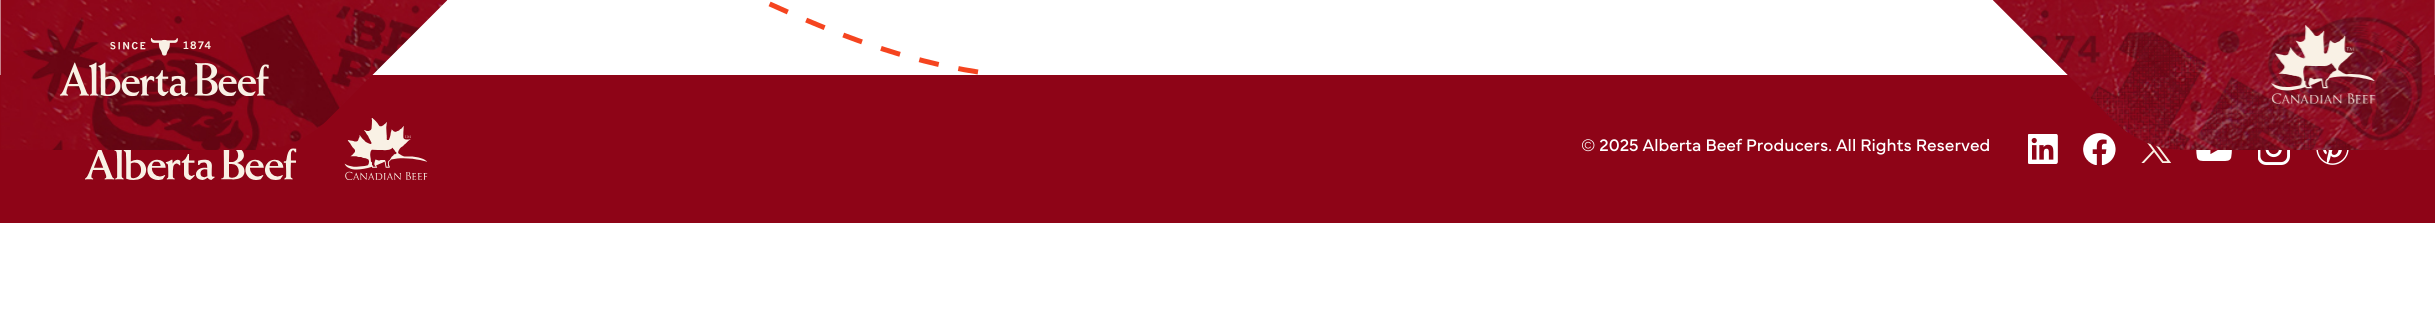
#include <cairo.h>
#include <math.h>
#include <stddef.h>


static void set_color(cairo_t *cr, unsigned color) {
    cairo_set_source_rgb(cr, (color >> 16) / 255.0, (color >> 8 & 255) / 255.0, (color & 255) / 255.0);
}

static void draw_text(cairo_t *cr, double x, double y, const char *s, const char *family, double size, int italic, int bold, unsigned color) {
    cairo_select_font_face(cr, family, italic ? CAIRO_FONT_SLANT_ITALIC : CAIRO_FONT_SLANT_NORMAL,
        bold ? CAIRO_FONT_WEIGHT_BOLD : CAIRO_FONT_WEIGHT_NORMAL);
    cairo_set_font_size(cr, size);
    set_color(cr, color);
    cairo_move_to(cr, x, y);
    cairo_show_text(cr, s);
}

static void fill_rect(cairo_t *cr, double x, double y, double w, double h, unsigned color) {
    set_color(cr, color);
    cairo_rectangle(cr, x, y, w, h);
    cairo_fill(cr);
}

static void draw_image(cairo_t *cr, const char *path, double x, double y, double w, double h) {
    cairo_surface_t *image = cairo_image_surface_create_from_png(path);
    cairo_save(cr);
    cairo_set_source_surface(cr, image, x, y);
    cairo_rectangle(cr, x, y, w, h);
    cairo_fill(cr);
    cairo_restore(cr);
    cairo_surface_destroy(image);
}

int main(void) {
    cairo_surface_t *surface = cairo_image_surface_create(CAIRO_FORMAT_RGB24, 2435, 311);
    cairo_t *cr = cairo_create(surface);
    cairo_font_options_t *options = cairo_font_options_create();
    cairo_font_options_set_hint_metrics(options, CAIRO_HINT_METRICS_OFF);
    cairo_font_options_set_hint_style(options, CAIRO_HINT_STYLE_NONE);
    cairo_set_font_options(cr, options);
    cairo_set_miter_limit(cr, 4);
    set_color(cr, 0xFFFFFF);
    cairo_paint(cr);
    cairo_new_path(cr);
    cairo_move_to(cr, 978, 72);
    cairo_curve_to(cr, 684.5, 27, 477, -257.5, 0.5, -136.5);
    set_color(cr, 0xF5441F);
    cairo_set_line_width(cr, 5);
    cairo_set_dash(cr, (double[]){20, 20}, 2, 0);
    cairo_stroke(cr);
    fill_rect(cr, 0, 75, 2435, 148, 0x8E0417);
    draw_image(cr, "assets/img4.png", 85, 118, 343, 62);
    draw_text(cr, 1581, 151, "© 2025 Alberta Beef Producers. All Rights Reserved", "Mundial", 17.5, 0, 0, 0xFFFFFF);
    draw_image(cr, "assets/img5.png", 2028, 134, 30, 30);
    draw_image(cr, "assets/img6.png", 2083, 133, 33, 32);
    draw_image(cr, "assets/img7.png", 2141, 142, 30, 21);
    draw_image(cr, "assets/img1.png", 0, 0, 2435, 150);
    draw_image(cr, "assets/img2.png", 60, 38, 209, 58);
    draw_image(cr, "assets/img3.png", 2271, 25, 105, 79);
    draw_image(cr, "assets/img8.png", 2196, 150, 36, 11);
    draw_image(cr, "assets/img9.png", 2258, 150, 32, 15);
    draw_image(cr, "assets/img10.png", 2316, 150, 33, 15);
    cairo_surface_write_to_png(surface, "output.png");
    cairo_font_options_destroy(options);
    cairo_destroy(cr);
    cairo_surface_destroy(surface);
    return 0;
}
